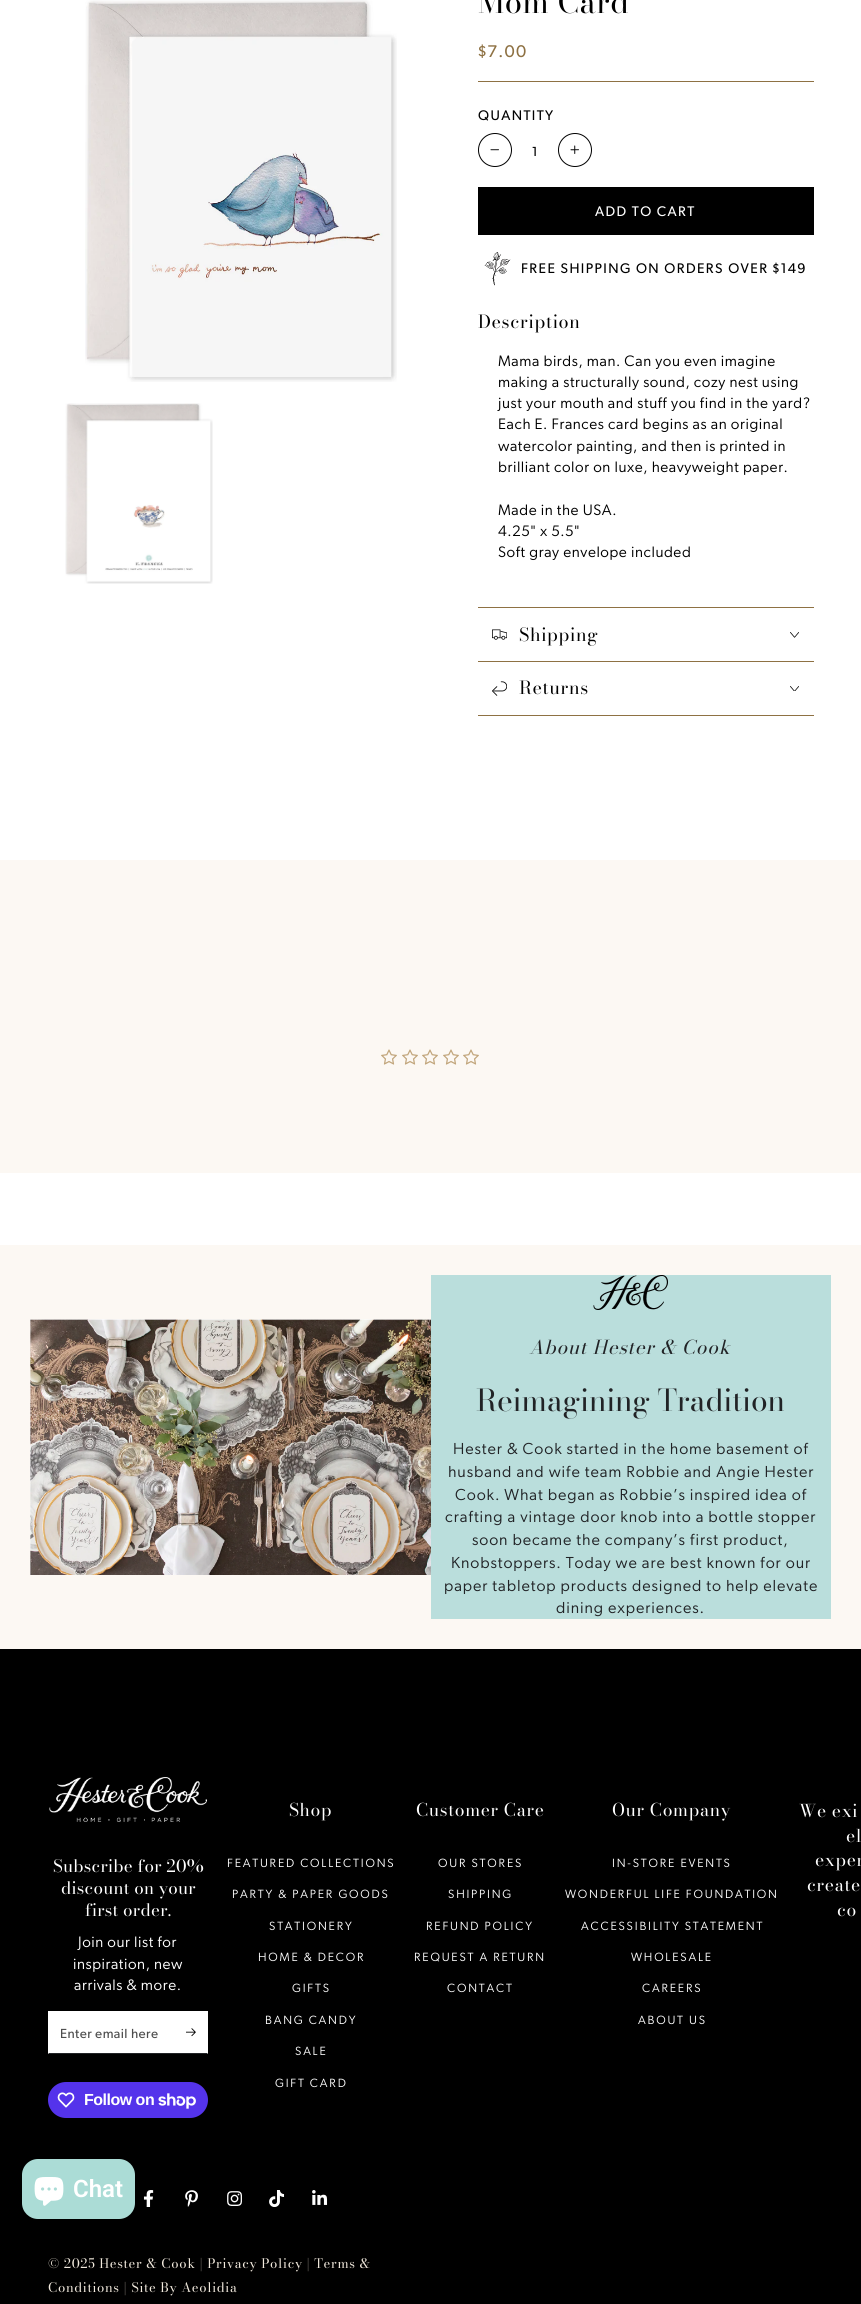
#include <cairo.h>
#include <math.h>
#include <stddef.h>


static void set_color(cairo_t *cr, unsigned color) {
    cairo_set_source_rgb(cr, (color >> 16) / 255.0, (color >> 8 & 255) / 255.0, (color & 255) / 255.0);
}

static void draw_text(cairo_t *cr, double x, double y, const char *s, const char *family, double size, int italic, int bold, unsigned color) {
    cairo_select_font_face(cr, family, italic ? CAIRO_FONT_SLANT_ITALIC : CAIRO_FONT_SLANT_NORMAL,
        bold ? CAIRO_FONT_WEIGHT_BOLD : CAIRO_FONT_WEIGHT_NORMAL);
    cairo_set_font_size(cr, size);
    set_color(cr, color);
    cairo_move_to(cr, x, y);
    cairo_show_text(cr, s);
}

static void draw_spaced(cairo_t *cr, double x, double y, const char *s, double letter, double word) {
    cairo_move_to(cr, x, y);
    while (*s) {
        char ch[5] = {0};
        int n = 0;
        do ch[n++] = *s++; while ((*s & 0xC0) == 0x80);
        cairo_show_text(cr, ch);
        cairo_rel_move_to(cr, letter + word * (*ch == ' '), 0);
    }
}

static void fill_rect(cairo_t *cr, double x, double y, double w, double h, unsigned color) {
    set_color(cr, color);
    cairo_rectangle(cr, x, y, w, h);
    cairo_fill(cr);
}

static void rounded_rect(cairo_t *cr, double x, double y, double w, double h, double r) {
    cairo_new_sub_path(cr);
    cairo_arc(cr, x + w - r, y + h - r, r, 0, M_PI / 2);
    cairo_arc(cr, x + r, y + h - r, r, M_PI / 2, M_PI);
    cairo_arc(cr, x + r, y + r, r, M_PI, 1.5 * M_PI);
    cairo_arc(cr, x + w - r, y + r, r, 1.5 * M_PI, 2 * M_PI);
    cairo_close_path(cr);
}

static void draw_image(cairo_t *cr, const char *path, double x, double y, double w, double h) {
    cairo_surface_t *image = cairo_image_surface_create_from_png(path);
    cairo_save(cr);
    cairo_set_source_surface(cr, image, x, y);
    cairo_rectangle(cr, x, y, w, h);
    cairo_fill(cr);
    cairo_restore(cr);
    cairo_surface_destroy(image);
}

int main(void) {
    cairo_surface_t *surface = cairo_image_surface_create(CAIRO_FORMAT_RGB24, 861, 2304);
    cairo_t *cr = cairo_create(surface);
    cairo_font_options_t *options = cairo_font_options_create();
    cairo_font_options_set_hint_metrics(options, CAIRO_HINT_METRICS_OFF);
    cairo_font_options_set_hint_style(options, CAIRO_HINT_STYLE_NONE);
    cairo_set_font_options(cr, options);
    cairo_set_miter_limit(cr, 4);
    set_color(cr, 0xFFFFFF);
    cairo_paint(cr);
    draw_image(cr, "assets/img1.png", 85, 0, 312, 382);
    draw_image(cr, "assets/img2.png", 65, 403, 148, 181);
    cairo_select_font_face(cr, "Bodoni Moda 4", CAIRO_FONT_SLANT_NORMAL, CAIRO_FONT_WEIGHT_NORMAL);
    cairo_set_font_size(cr, 31);
    set_color(cr, 0x000000);
    draw_spaced(cr, 478, 13, "Mom Card", 0.65, 0);
    cairo_select_font_face(cr, "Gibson", CAIRO_FONT_SLANT_NORMAL, CAIRO_FONT_WEIGHT_NORMAL);
    cairo_set_font_size(cr, 17);
    set_color(cr, 0x8E7143);
    draw_spaced(cr, 478, 57, "$7.00", 1, 0);
    fill_rect(cr, 478, 81, 336, 1, 0x8E7143);
    cairo_set_font_size(cr, 14);
    set_color(cr, 0x000000);
    draw_spaced(cr, 478, 120, "QUANTITY", 1.4, 0);
    cairo_new_path(cr);
    cairo_arc(cr, 495, 150, 16.5, 0, 2 * M_PI);
    cairo_set_line_width(cr, 1);
    cairo_stroke(cr);
    draw_image(cr, "assets/img3.png", 490, 149, 9, 2);
    draw_text(cr, 532, 156, "1", "Gibson", 13.25, 0, 0, 0x000000);
    cairo_new_path(cr);
    cairo_arc(cr, 575, 150, 16.5, 0, 2 * M_PI);
    cairo_stroke(cr);
    draw_image(cr, "assets/img4.png", 570, 145, 9, 9);
    fill_rect(cr, 478, 187, 336, 48, 0x000000);
    cairo_set_font_size(cr, 14);
    set_color(cr, 0xFFFFFF);
    draw_spaced(cr, 595, 216, "ADD TO CART", 1.4, 0);
    draw_image(cr, "assets/img5.png", 484, 252, 27, 34);
    set_color(cr, 0x000000);
    draw_spaced(cr, 521, 273, "FREE SHIPPING ON ORDERS OVER $149", 1.4, 0);
    cairo_select_font_face(cr, "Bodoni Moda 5", CAIRO_FONT_SLANT_NORMAL, CAIRO_FONT_WEIGHT_NORMAL);
    cairo_set_font_size(cr, 18);
    draw_spaced(cr, 478, 328, "Description", 0.65, 0);
    cairo_select_font_face(cr, "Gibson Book", CAIRO_FONT_SLANT_NORMAL, CAIRO_FONT_WEIGHT_NORMAL);
    cairo_set_font_size(cr, 15.2);
    draw_spaced(cr, 498, 366, "Mama birds, man. Can you even imagine", 0.55, 0);
    draw_spaced(cr, 498, 387, "making a structurally sound, cozy nest using", 0.55, 0);
    draw_spaced(cr, 498, 408, "just your mouth and stuff you find in the yard?", 0.55, 0);
    draw_spaced(cr, 498, 429, "Each E. Frances card begins as an original", 0.55, 0);
    draw_spaced(cr, 498, 451, "watercolor painting, and then is printed in", 0.55, 0);
    draw_spaced(cr, 498, 472, "brilliant color on luxe, heavyweight paper.", 0.55, 0);
    draw_spaced(cr, 498, 515, "Made in the USA.", 0.55, 0);
    draw_spaced(cr, 498, 536, "4.25\" x 5.5\"", 0.55, 0);
    draw_spaced(cr, 498, 557, "Soft gray envelope included", 0.55, 0);
    fill_rect(cr, 478, 607, 336, 1, 0x8E7143);
    fill_rect(cr, 478, 661, 336, 1, 0x8E7143);
    draw_image(cr, "assets/img6.png", 492, 629, 15, 11);
    cairo_select_font_face(cr, "Bodoni Moda 5", CAIRO_FONT_SLANT_NORMAL, CAIRO_FONT_WEIGHT_NORMAL);
    cairo_set_font_size(cr, 18);
    set_color(cr, 0x000000);
    draw_spaced(cr, 519, 641, "Shipping", 0.65, 0);
    draw_image(cr, "assets/img7.png", 790, 632, 9, 6);
    fill_rect(cr, 478, 715, 336, 1, 0x8E7143);
    draw_image(cr, "assets/img8.png", 492, 681, 15, 15);
    set_color(cr, 0x000000);
    draw_spaced(cr, 519, 694, "Returns", 0.65, 0);
    draw_image(cr, "assets/img9.png", 790, 686, 9, 5);
    fill_rect(cr, 0, 860, 861, 313, 0xFCF8F3);
    draw_image(cr, "assets/img10.png", 381, 1049, 16, 16);
    draw_image(cr, "assets/img10.png", 402, 1049, 16, 16);
    draw_image(cr, "assets/img10.png", 422, 1049, 16, 16);
    draw_image(cr, "assets/img10.png", 443, 1049, 16, 16);
    draw_image(cr, "assets/img10.png", 463, 1049, 16, 16);
    fill_rect(cr, 0, 1245, 861, 404, 0xFCF8F3);
    draw_image(cr, "assets/img11.png", 30, 1319, 401, 256);
    fill_rect(cr, 431, 1275, 400, 344, 0xBADEDC);
    draw_image(cr, "assets/img12.png", 593, 1275, 75, 35);
    cairo_select_font_face(cr, "Bodoni Moda", CAIRO_FONT_SLANT_ITALIC, CAIRO_FONT_WEIGHT_NORMAL);
    cairo_set_font_size(cr, 19);
    set_color(cr, 0x212326);
    draw_spaced(cr, 529, 1354, "About Hester & Cook", 0.8, 0);
    draw_text(cr, 476, 1411, "Reimagining Tradition", "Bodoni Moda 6", 30, 0, 0, 0x212326);
    cairo_select_font_face(cr, "Gibson Book", CAIRO_FONT_SLANT_NORMAL, CAIRO_FONT_WEIGHT_NORMAL);
    cairo_set_font_size(cr, 16);
    draw_spaced(cr, 453, 1454, "Hester & Cook started in the home basement of", 0.88, 0);
    draw_spaced(cr, 448, 1477, "husband and wife team Robbie and Angie Hester", 0.88, 0);
    draw_spaced(cr, 455, 1500, "Cook. What began as Robbie’s inspired idea of", 0.88, 0);
    draw_spaced(cr, 445, 1522, "crafting a vintage door knob into a bottle stopper", 0.88, 0);
    draw_spaced(cr, 472, 1545, "soon became the company’s first product,", 0.88, 0);
    draw_spaced(cr, 451, 1568, "Knobstoppers. Today we are best known for our", 0.88, 0);
    draw_spaced(cr, 444, 1591, "paper tabletop products designed to help elevate", 0.88, 0);
    draw_spaced(cr, 556, 1613, "dining experiences.", 0.88, 0);
    fill_rect(cr, 0, 1649, 861, 655, 0x000000);
    draw_image(cr, "assets/img13.png", 49, 1777, 158, 45);
    cairo_select_font_face(cr, "Bodoni Moda", CAIRO_FONT_SLANT_NORMAL, CAIRO_FONT_WEIGHT_NORMAL);
    cairo_set_font_size(cr, 17);
    set_color(cr, 0xFFFFFF);
    draw_spaced(cr, 53, 1872, "Subscribe for 20%", 0.25, 0);
    draw_spaced(cr, 61, 1894, "discount on your", 0.25, 0);
    draw_spaced(cr, 85, 1916, "first order.", 0.25, 0);
    cairo_select_font_face(cr, "Gibson Book", CAIRO_FONT_SLANT_NORMAL, CAIRO_FONT_WEIGHT_NORMAL);
    cairo_set_font_size(cr, 15.2);
    draw_spaced(cr, 78, 1947, "Join our list for", 0.55, 0);
    draw_spaced(cr, 73, 1969, "inspiration, new", 0.55, 0);
    draw_spaced(cr, 74, 1990, "arrivals & more.", 0.55, 0);
    fill_rect(cr, 48, 2011, 160, 43, 0xFFFFFF);
    set_color(cr, 0x212326);
    cairo_new_path(cr);
    cairo_move_to(cr, 208, 2054);
    cairo_line_to(cr, 48, 2054);
    cairo_line_to(cr, 49, 2053);
    cairo_line_to(cr, 207, 2053);
    cairo_close_path(cr);
    cairo_fill(cr);
    cairo_select_font_face(cr, "Gibson", CAIRO_FONT_SLANT_NORMAL, CAIRO_FONT_WEIGHT_NORMAL);
    cairo_set_font_size(cr, 13.25);
    set_color(cr, 0x4D4D4D);
    draw_spaced(cr, 60, 2038, "Enter email here", 0.4, 0);
    draw_image(cr, "assets/img14.png", 186, 2028, 10, 9);
    set_color(cr, 0x5433EB);
    rounded_rect(cr, 48, 2082, 160, 36, 18);
    cairo_fill(cr);
    draw_image(cr, "assets/img15.png", 57, 2092, 18, 16);
    cairo_select_font_face(cr, "Liberation Sans", CAIRO_FONT_SLANT_NORMAL, CAIRO_FONT_WEIGHT_BOLD);
    cairo_set_font_size(cr, 16);
    set_color(cr, 0xFFFFFF);
    draw_spaced(cr, 84, 2105, "Follow on", -0.5, 0);
    draw_image(cr, "assets/img16.png", 158, 2093, 38, 16);
    cairo_select_font_face(cr, "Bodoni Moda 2", CAIRO_FONT_SLANT_NORMAL, CAIRO_FONT_WEIGHT_NORMAL);
    cairo_set_font_size(cr, 17.5);
    draw_spaced(cr, 289, 1816, "Shop", 0.65, 0);
    cairo_select_font_face(cr, "Gibson Book", CAIRO_FONT_SLANT_NORMAL, CAIRO_FONT_WEIGHT_NORMAL);
    cairo_set_font_size(cr, 12);
    draw_spaced(cr, 227, 1867, "FEATURED COLLECTIONS", 1.8, 0);
    draw_spaced(cr, 232, 1898, "PARTY & PAPER GOODS", 1.8, 0);
    draw_spaced(cr, 269, 1930, "STATIONERY", 1.8, 0);
    draw_spaced(cr, 258, 1961, "HOME & DECOR", 1.8, 0);
    draw_spaced(cr, 292, 1992, "GIFTS", 1.8, 0);
    draw_spaced(cr, 265, 2024, "BANG CANDY", 1.8, 0);
    draw_spaced(cr, 295, 2055, "SALE", 1.8, 0);
    draw_spaced(cr, 275, 2087, "GIFT CARD", 1.8, 0);
    cairo_select_font_face(cr, "Bodoni Moda 2", CAIRO_FONT_SLANT_NORMAL, CAIRO_FONT_WEIGHT_NORMAL);
    cairo_set_font_size(cr, 17.5);
    draw_spaced(cr, 416, 1816, "Customer Care", 0.65, 0);
    cairo_select_font_face(cr, "Gibson Book", CAIRO_FONT_SLANT_NORMAL, CAIRO_FONT_WEIGHT_NORMAL);
    cairo_set_font_size(cr, 12);
    draw_spaced(cr, 438, 1867, "OUR STORES", 1.8, 0);
    draw_spaced(cr, 448, 1898, "SHIPPING", 1.8, 0);
    draw_spaced(cr, 426, 1930, "REFUND POLICY", 1.8, 0);
    draw_spaced(cr, 414, 1961, "REQUEST A RETURN", 1.8, 0);
    draw_spaced(cr, 447, 1992, "CONTACT", 1.8, 0);
    cairo_select_font_face(cr, "Bodoni Moda 2", CAIRO_FONT_SLANT_NORMAL, CAIRO_FONT_WEIGHT_NORMAL);
    cairo_set_font_size(cr, 17.5);
    draw_spaced(cr, 612, 1816, "Our Company", 0.65, 0);
    cairo_select_font_face(cr, "Gibson Book", CAIRO_FONT_SLANT_NORMAL, CAIRO_FONT_WEIGHT_NORMAL);
    cairo_set_font_size(cr, 12);
    draw_spaced(cr, 612, 1867, "IN-STORE EVENTS", 1.8, 0);
    draw_spaced(cr, 565, 1898, "WONDERFUL LIFE FOUNDATION", 1.8, 0);
    draw_spaced(cr, 581, 1930, "ACCESSIBILITY STATEMENT", 1.8, 0);
    draw_spaced(cr, 631, 1961, "WHOLESALE", 1.8, 0);
    draw_spaced(cr, 642, 1992, "CAREERS", 1.8, 0);
    draw_spaced(cr, 638, 2024, "ABOUT US", 1.8, 0);
    cairo_select_font_face(cr, "Bodoni Moda 2", CAIRO_FONT_SLANT_NORMAL, CAIRO_FONT_WEIGHT_NORMAL);
    cairo_set_font_size(cr, 17.5);
    draw_spaced(cr, 799, 1817, "We exi", 0.65, 0);
    draw_spaced(cr, 846, 1842, "el", 0.65, 0);
    draw_spaced(cr, 815, 1866, "exper", 0.65, 0);
    draw_spaced(cr, 807, 1891, "create", 0.65, 0);
    draw_spaced(cr, 837, 1916, "co", 0.65, 0);
    draw_image(cr, "assets/img17.png", 143, 2190, 11, 17);
    draw_image(cr, "assets/img18.png", 185, 2190, 13, 17);
    draw_image(cr, "assets/img19.png", 227, 2191, 15, 15);
    draw_image(cr, "assets/img20.png", 269, 2190, 16, 17);
    draw_image(cr, "assets/img21.png", 312, 2190, 16, 15);
    cairo_select_font_face(cr, "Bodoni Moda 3", CAIRO_FONT_SLANT_NORMAL, CAIRO_FONT_WEIGHT_NORMAL);
    cairo_set_font_size(cr, 13);
    set_color(cr, 0xF2EADE);
    draw_spaced(cr, 48, 2268, "© 2025 Hester & Cook | Privacy Policy | Terms &", 0.65, 0);
    draw_spaced(cr, 48, 2292, "Conditions | Site By Aeolidia", 0.65, 0);
    set_color(cr, 0xABDCD6);
    rounded_rect(cr, 22, 2159, 113, 60, 16);
    cairo_fill(cr);
    draw_image(cr, "assets/img22.png", 34, 2177, 30, 29);
    draw_text(cr, 73, 2197, "Chat", "Roboto SemiBold", 24, 0, 0, 0xFFFFFF);
    cairo_surface_write_to_png(surface, "output.png");
    cairo_font_options_destroy(options);
    cairo_destroy(cr);
    cairo_surface_destroy(surface);
    return 0;
}
